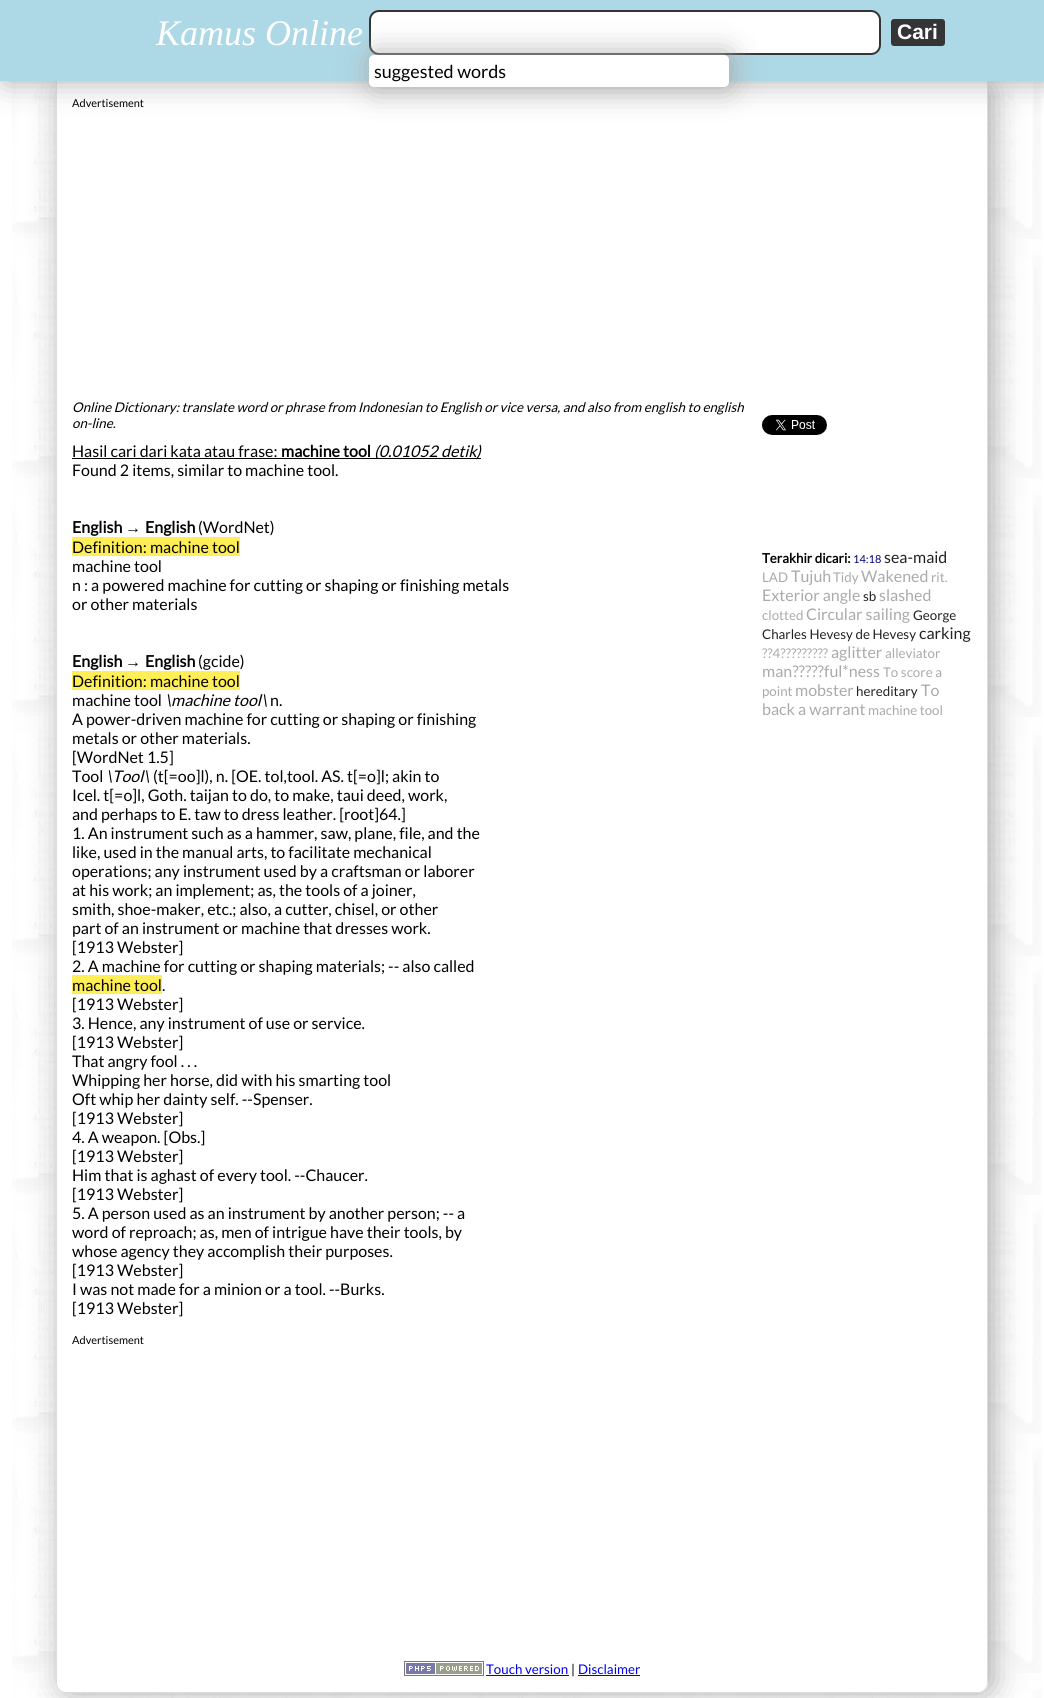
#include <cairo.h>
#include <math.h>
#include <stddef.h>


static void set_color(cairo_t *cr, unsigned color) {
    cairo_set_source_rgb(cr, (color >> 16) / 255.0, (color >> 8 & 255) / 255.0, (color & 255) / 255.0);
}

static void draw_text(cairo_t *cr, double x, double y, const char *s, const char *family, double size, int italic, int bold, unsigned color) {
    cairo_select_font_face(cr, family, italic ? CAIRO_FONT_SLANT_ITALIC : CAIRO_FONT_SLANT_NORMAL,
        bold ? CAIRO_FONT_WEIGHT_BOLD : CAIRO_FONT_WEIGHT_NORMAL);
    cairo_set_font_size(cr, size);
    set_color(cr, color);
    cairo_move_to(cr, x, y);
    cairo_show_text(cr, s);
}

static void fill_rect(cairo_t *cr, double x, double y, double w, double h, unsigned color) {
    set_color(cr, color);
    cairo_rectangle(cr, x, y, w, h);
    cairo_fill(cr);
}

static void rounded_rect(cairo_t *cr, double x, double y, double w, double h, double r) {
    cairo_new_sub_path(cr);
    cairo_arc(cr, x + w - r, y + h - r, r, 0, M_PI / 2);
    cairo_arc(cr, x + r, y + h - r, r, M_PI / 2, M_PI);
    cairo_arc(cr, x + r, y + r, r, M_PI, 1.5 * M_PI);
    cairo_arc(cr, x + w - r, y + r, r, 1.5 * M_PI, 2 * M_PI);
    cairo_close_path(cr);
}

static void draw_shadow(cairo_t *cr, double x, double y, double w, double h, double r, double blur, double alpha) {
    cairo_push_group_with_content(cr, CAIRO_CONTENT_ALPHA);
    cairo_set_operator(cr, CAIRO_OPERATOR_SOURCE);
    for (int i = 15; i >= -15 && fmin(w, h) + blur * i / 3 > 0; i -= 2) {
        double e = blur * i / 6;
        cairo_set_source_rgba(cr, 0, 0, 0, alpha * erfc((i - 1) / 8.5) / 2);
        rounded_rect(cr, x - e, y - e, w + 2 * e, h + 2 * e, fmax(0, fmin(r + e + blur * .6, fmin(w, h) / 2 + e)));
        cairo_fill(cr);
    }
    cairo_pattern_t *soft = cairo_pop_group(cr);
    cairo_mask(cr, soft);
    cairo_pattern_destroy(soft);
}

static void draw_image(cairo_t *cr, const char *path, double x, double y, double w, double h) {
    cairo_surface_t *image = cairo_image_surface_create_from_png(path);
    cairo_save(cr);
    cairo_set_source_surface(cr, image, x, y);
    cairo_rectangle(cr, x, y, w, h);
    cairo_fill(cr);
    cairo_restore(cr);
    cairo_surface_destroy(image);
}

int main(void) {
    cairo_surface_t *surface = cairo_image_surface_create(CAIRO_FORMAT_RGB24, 1044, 1698);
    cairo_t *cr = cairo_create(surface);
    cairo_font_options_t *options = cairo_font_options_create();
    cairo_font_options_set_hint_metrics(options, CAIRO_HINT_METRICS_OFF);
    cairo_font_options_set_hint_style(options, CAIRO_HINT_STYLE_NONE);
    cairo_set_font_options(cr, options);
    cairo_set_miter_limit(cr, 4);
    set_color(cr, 0xFFFFFF);
    cairo_paint(cr);
    draw_image(cr, "assets/img1.png", 12, 81, 1030, 1617);
    set_color(cr, 0xAAAAAA);
    draw_shadow(cr, 61, 81, 932, 1612, 10, 15, 1);
    set_color(cr, 0xFFFFFF);
    cairo_new_path(cr);
    cairo_move_to(cr, 56, 81);
    cairo_line_to(cr, 988, 81);
    cairo_line_to(cr, 988, 1683);
    cairo_curve_to(cr, 988, 1688.5, 983.5, 1693, 978, 1693);
    cairo_line_to(cr, 66, 1693);
    cairo_curve_to(cr, 60.5, 1693, 56, 1688.5, 56, 1683);
    cairo_close_path(cr);
    cairo_fill(cr);
    set_color(cr, 0xDDDDDD);
    cairo_set_fill_rule(cr, CAIRO_FILL_RULE_EVEN_ODD);
    cairo_new_path(cr);
    cairo_move_to(cr, 56, 81);
    cairo_line_to(cr, 988, 81);
    cairo_line_to(cr, 988, 1683);
    cairo_curve_to(cr, 988, 1689, 984, 1693, 978, 1693);
    cairo_line_to(cr, 66, 1693);
    cairo_curve_to(cr, 60, 1693, 56, 1689, 56, 1683);
    cairo_close_path(cr);
    cairo_move_to(cr, 57, 81);
    cairo_line_to(cr, 987, 81);
    cairo_line_to(cr, 987, 1683);
    cairo_curve_to(cr, 987, 1688, 983, 1692, 978, 1692);
    cairo_line_to(cr, 66, 1692);
    cairo_curve_to(cr, 61, 1692, 57, 1688, 57, 1683);
    cairo_close_path(cr);
    cairo_fill(cr);
    set_color(cr, 0xAAAAAA);
    draw_shadow(cr, 5, 0, 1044, 81, 0, 15, 1);
    fill_rect(cr, 0, 0, 1044, 81, 0xADD8E6);
    draw_text(cr, 156, 45, "Kamus Online", "Liberation Serif", 36, 1, 0, 0xFFFFFF);
    set_color(cr, 0x353535);
    rounded_rect(cr, 891, 19, 54, 27, 3);
    cairo_fill(cr);
    draw_text(cr, 897, 39, "Cari", "Liberation Sans", 21, 0, 1, 0xFFFFFF);
    rounded_rect(cr, 370, 11, 510, 43, 9);
    cairo_fill_preserve(cr);
    set_color(cr, 0x353535);
    cairo_stroke(cr);
    set_color(cr, 0xAAAAAA);
    draw_shadow(cr, 371, 55, 360, 32, 5, 15, 1);
    set_color(cr, 0xFFFFFF);
    rounded_rect(cr, 369, 55, 360, 32, 5);
    cairo_fill(cr);
    draw_text(cr, 374, 78, "suggested words", "Lato", 18, 0, 0, 0x000000);
    draw_text(cr, 72, 107, "Advertisement", "Lato", 11, 0, 0, 0x000000);
    draw_text(cr, 72, 412, "Online Dictionary: translate word or phrase from Indonesian to English or vice versa, and also from english to english", "Lato", 13.33, 1, 0, 0x000000);
    draw_text(cr, 72, 428, "on-line.", "Lato", 13.33, 1, 0, 0x000000);
    draw_text(cr, 72, 457, "Hasil cari dari kata atau frase:", "Lato", 16, 0, 0, 0x000000);
    draw_text(cr, 281, 457, "machine tool", "Lato", 16, 0, 1, 0x000000);
    fill_rect(cr, 72, 458, 404, 1, 0x000000);
    draw_text(cr, 374, 457, "(0.01052 detik", "Lato", 16, 1, 0, 0x000000);
    fill_rect(cr, 476, 458, 5, 1, 0x000000);
    draw_text(cr, 476, 457, ")", "Lato", 16, 1, 0, 0x000000);
    draw_text(cr, 72, 476, "Found 2 items, similar to machine tool.", "Lato", 16, 0, 0, 0x000000);
    draw_text(cr, 72, 533, "English", "Lato", 16, 0, 1, 0x000000);
    draw_text(cr, 125, 533, "→", "Liberation Sans", 16, 0, 1, 0x000000);
    draw_text(cr, 145, 533, "English", "Lato", 16, 0, 1, 0x000000);
    draw_text(cr, 198, 533, "(WordNet)", "Lato", 16, 0, 0, 0x000000);
    fill_rect(cr, 72, 537, 168, 19, 0xFFEE55);
    draw_text(cr, 72, 553, "Definition: machine tool", "Lato", 16, 0, 0, 0x000000);
    draw_text(cr, 72, 572, "machine tool", "Lato", 16, 0, 0, 0x000000);
    draw_text(cr, 72, 591, "n : a powered machine for cutting or shaping or finishing metals", "Lato", 16, 0, 0, 0x000000);
    draw_text(cr, 72, 610, "or other materials", "Lato", 16, 0, 0, 0x000000);
    draw_text(cr, 72, 667, "English", "Lato", 16, 0, 1, 0x000000);
    draw_text(cr, 125, 667, "→", "Liberation Sans", 16, 0, 1, 0x000000);
    draw_text(cr, 145, 667, "English", "Lato", 16, 0, 1, 0x000000);
    draw_text(cr, 198, 667, "(gcide)", "Lato", 16, 0, 0, 0x000000);
    fill_rect(cr, 72, 671, 168, 19, 0xFFEE55);
    draw_text(cr, 72, 687, "Definition: machine tool", "Lato", 16, 0, 0, 0x000000);
    draw_text(cr, 72, 706, "machine tool", "Lato", 16, 0, 0, 0x000000);
    draw_text(cr, 165, 706, "\\machine tool\\", "Lato", 16, 1, 0, 0x000000);
    draw_text(cr, 270, 706, "n.", "Lato", 16, 0, 0, 0x000000);
    draw_text(cr, 72, 725, "A power-driven machine for cutting or shaping or finishing", "Lato", 16, 0, 0, 0x000000);
    draw_text(cr, 72, 744, "metals or other materials.", "Lato", 16, 0, 0, 0x000000);
    draw_text(cr, 72, 763, "[WordNet 1.5]", "Lato", 16, 0, 0, 0x000000);
    draw_text(cr, 72, 782, "Tool", "Lato", 16, 0, 0, 0x000000);
    draw_text(cr, 106, 782, "\\Tool\\", "Lato", 16, 1, 0, 0x000000);
    draw_text(cr, 153, 782, "(t[=oo]l), n. [OE. tol,tool. AS. t[=o]l; akin to", "Lato", 16, 0, 0, 0x000000);
    draw_text(cr, 72, 801, "Icel. t[=o]l, Goth. taijan to do, to make, taui deed, work,", "Lato", 16, 0, 0, 0x000000);
    draw_text(cr, 72, 820, "and perhaps to E. taw to dress leather. [root]64.]", "Lato", 16, 0, 0, 0x000000);
    draw_text(cr, 72, 839, "1. An instrument such as a hammer, saw, plane, file, and the", "Lato", 16, 0, 0, 0x000000);
    draw_text(cr, 72, 858, "like, used in the manual arts, to facilitate mechanical", "Lato", 16, 0, 0, 0x000000);
    draw_text(cr, 72, 877, "operations; any instrument used by a craftsman or laborer", "Lato", 16, 0, 0, 0x000000);
    draw_text(cr, 72, 896, "at his work; an implement; as, the tools of a joiner,", "Lato", 16, 0, 0, 0x000000);
    draw_text(cr, 72, 915, "smith, shoe-maker, etc.; also, a cutter, chisel, or other", "Lato", 16, 0, 0, 0x000000);
    draw_text(cr, 72, 934, "part of an instrument or machine that dresses work.", "Lato", 16, 0, 0, 0x000000);
    draw_text(cr, 72, 953, "[1913 Webster]", "Lato", 16, 0, 0, 0x000000);
    draw_text(cr, 72, 972, "2. A machine for cutting or shaping materials; -- also called", "Lato", 16, 0, 0, 0x000000);
    fill_rect(cr, 72, 975, 90, 19, 0xFFEE55);
    draw_text(cr, 72, 991, "machine tool.", "Lato", 16, 0, 0, 0x000000);
    draw_text(cr, 72, 1010, "[1913 Webster]", "Lato", 16, 0, 0, 0x000000);
    draw_text(cr, 72, 1029, "3. Hence, any instrument of use or service.", "Lato", 16, 0, 0, 0x000000);
    draw_text(cr, 72, 1048, "[1913 Webster]", "Lato", 16, 0, 0, 0x000000);
    draw_text(cr, 72, 1067, "That angry fool . . .", "Lato", 16, 0, 0, 0x000000);
    draw_text(cr, 72, 1086, "Whipping her horse, did with his smarting tool", "Lato", 16, 0, 0, 0x000000);
    draw_text(cr, 72, 1105, "Oft whip her dainty self. --Spenser.", "Lato", 16, 0, 0, 0x000000);
    draw_text(cr, 72, 1124, "[1913 Webster]", "Lato", 16, 0, 0, 0x000000);
    draw_text(cr, 72, 1143, "4. A weapon. [Obs.]", "Lato", 16, 0, 0, 0x000000);
    draw_text(cr, 72, 1162, "[1913 Webster]", "Lato", 16, 0, 0, 0x000000);
    draw_text(cr, 72, 1181, "Him that is aghast of every tool. --Chaucer.", "Lato", 16, 0, 0, 0x000000);
    draw_text(cr, 72, 1200, "[1913 Webster]", "Lato", 16, 0, 0, 0x000000);
    draw_text(cr, 72, 1219, "5. A person used as an instrument by another person; -- a", "Lato", 16, 0, 0, 0x000000);
    draw_text(cr, 72, 1238, "word of reproach; as, men of intrigue have their tools, by", "Lato", 16, 0, 0, 0x000000);
    draw_text(cr, 72, 1257, "whose agency they accomplish their purposes.", "Lato", 16, 0, 0, 0x000000);
    draw_text(cr, 72, 1276, "[1913 Webster]", "Lato", 16, 0, 0, 0x000000);
    draw_text(cr, 72, 1295, "I was not made for a minion or a tool. --Burks.", "Lato", 16, 0, 0, 0x000000);
    draw_text(cr, 72, 1314, "[1913 Webster]", "Lato", 16, 0, 0, 0x000000);
    draw_text(cr, 72, 1344, "Advertisement", "Lato", 11, 0, 0, 0x000000);
    draw_image(cr, "assets/img2.png", 762, 415, 65, 20);
    draw_text(cr, 762, 563, "Terakhir dicari:", "Lato", 13.33, 0, 1, 0x000000);
    draw_text(cr, 853, 563, "14:18", "Lato", 11, 0, 0, 0x000080);
    draw_text(cr, 884, 563, "sea-maid", "Lato", 16, 0, 0, 0x222222);
    draw_text(cr, 762, 582, "LAD", "Lato", 13.33, 0, 0, 0xAAAAAA);
    draw_text(cr, 791, 582, "Tujuh", "Lato", 16, 0, 0, 0xAAAAAA);
    draw_text(cr, 833, 582, "Tidy", "Lato", 13.33, 0, 0, 0xAAAAAA);
    draw_text(cr, 861, 582, "Wakened", "Lato", 16, 0, 0, 0xAAAAAA);
    draw_text(cr, 931, 582, "rit.", "Lato", 13.33, 0, 0, 0xAAAAAA);
    draw_text(cr, 762, 601, "Exterior angle", "Lato", 16, 0, 0, 0xAAAAAA);
    draw_text(cr, 863, 601, "sb", "Lato", 13.33, 0, 0, 0x222222);
    draw_text(cr, 879, 601, "slashed", "Lato", 16, 0, 0, 0xAAAAAA);
    draw_text(cr, 762, 620, "clotted", "Lato", 13.33, 0, 0, 0xAAAAAA);
    draw_text(cr, 806, 620, "Circular sailing", "Lato", 16, 0, 0, 0xAAAAAA);
    draw_text(cr, 913, 620, "George", "Lato", 13.33, 0, 0, 0x222222);
    draw_text(cr, 762, 639, "Charles Hevesy de Hevesy", "Lato", 13.33, 0, 0, 0x222222);
    draw_text(cr, 919, 639, "carking", "Lato", 16, 0, 0, 0x222222);
    draw_text(cr, 762, 658, "?\0774?\077?\077?\077?\077?", "Lato", 13.33, 0, 0, 0xAAAAAA);
    draw_text(cr, 831, 658, "aglitter", "Lato", 16, 0, 0, 0xAAAAAA);
    draw_text(cr, 885, 658, "alleviator", "Lato", 13.33, 0, 0, 0xAAAAAA);
    draw_text(cr, 762, 677, "man?\077?\077?ful*ness", "Lato", 16, 0, 0, 0xAAAAAA);
    draw_text(cr, 883, 677, "To score a", "Lato", 13.33, 0, 0, 0xAAAAAA);
    draw_text(cr, 762, 696, "point", "Lato", 13.33, 0, 0, 0xAAAAAA);
    draw_text(cr, 795, 696, "mobster", "Lato", 16, 0, 0, 0xAAAAAA);
    draw_text(cr, 856, 696, "hereditary", "Lato", 13.33, 0, 0, 0x222222);
    draw_text(cr, 921, 696, "To", "Lato", 16, 0, 0, 0xAAAAAA);
    draw_text(cr, 762, 715, "back a warrant", "Lato", 16, 0, 0, 0xAAAAAA);
    draw_text(cr, 868, 715, "machine tool", "Lato", 13.33, 0, 0, 0xAAAAAA);
    draw_image(cr, "assets/img3.png", 404, 1661, 80, 15);
    draw_text(cr, 486, 1674, "Touch version", "Lato", 13.33, 0, 0, 0x0000EE);
    fill_rect(cr, 486, 1675, 83, 1, 0x0000EE);
    draw_text(cr, 571, 1674, "|", "Lato", 13.33, 0, 0, 0x000000);
    draw_text(cr, 578, 1674, "Disclaimer", "Lato", 13.33, 0, 0, 0x0000EE);
    fill_rect(cr, 578, 1675, 62, 1, 0x0000EE);
    cairo_surface_write_to_png(surface, "output.png");
    cairo_font_options_destroy(options);
    cairo_destroy(cr);
    cairo_surface_destroy(surface);
    return 0;
}
